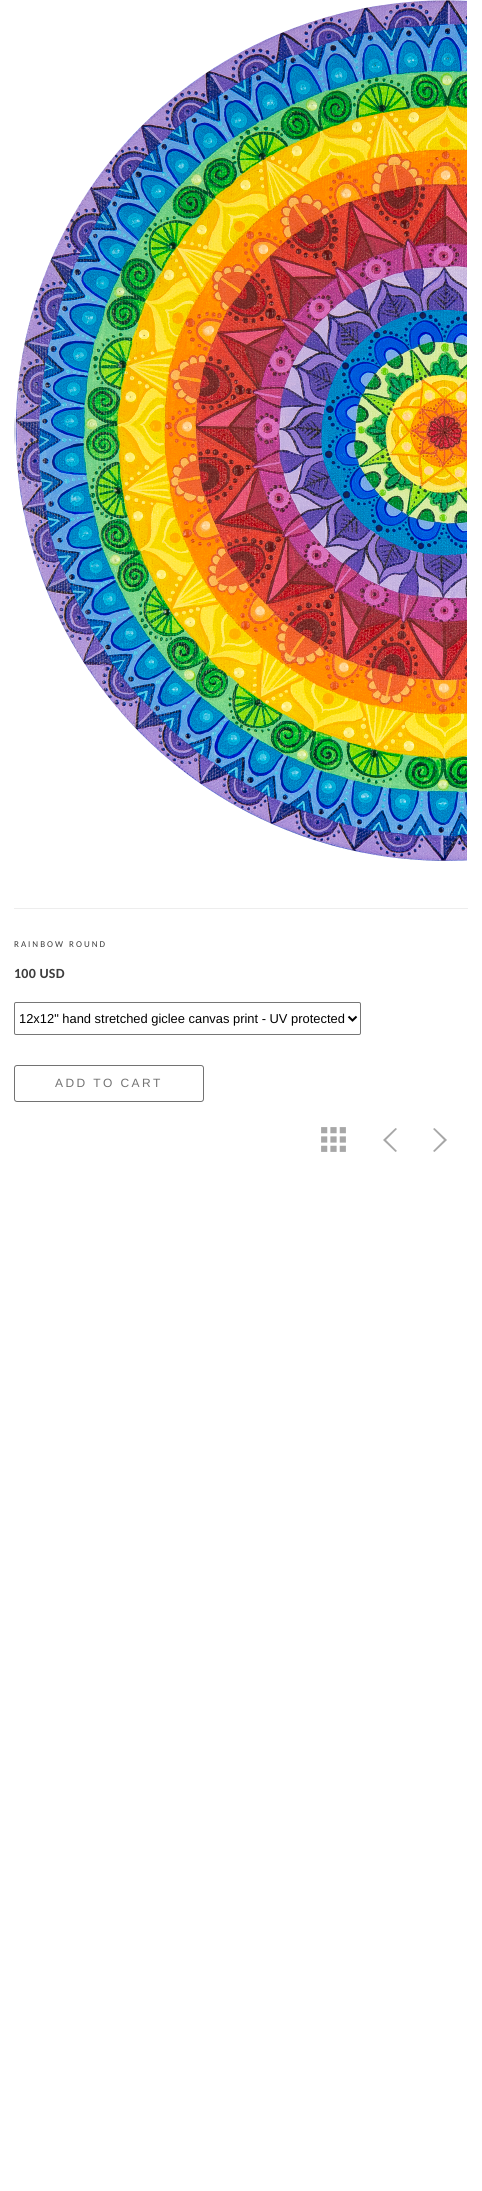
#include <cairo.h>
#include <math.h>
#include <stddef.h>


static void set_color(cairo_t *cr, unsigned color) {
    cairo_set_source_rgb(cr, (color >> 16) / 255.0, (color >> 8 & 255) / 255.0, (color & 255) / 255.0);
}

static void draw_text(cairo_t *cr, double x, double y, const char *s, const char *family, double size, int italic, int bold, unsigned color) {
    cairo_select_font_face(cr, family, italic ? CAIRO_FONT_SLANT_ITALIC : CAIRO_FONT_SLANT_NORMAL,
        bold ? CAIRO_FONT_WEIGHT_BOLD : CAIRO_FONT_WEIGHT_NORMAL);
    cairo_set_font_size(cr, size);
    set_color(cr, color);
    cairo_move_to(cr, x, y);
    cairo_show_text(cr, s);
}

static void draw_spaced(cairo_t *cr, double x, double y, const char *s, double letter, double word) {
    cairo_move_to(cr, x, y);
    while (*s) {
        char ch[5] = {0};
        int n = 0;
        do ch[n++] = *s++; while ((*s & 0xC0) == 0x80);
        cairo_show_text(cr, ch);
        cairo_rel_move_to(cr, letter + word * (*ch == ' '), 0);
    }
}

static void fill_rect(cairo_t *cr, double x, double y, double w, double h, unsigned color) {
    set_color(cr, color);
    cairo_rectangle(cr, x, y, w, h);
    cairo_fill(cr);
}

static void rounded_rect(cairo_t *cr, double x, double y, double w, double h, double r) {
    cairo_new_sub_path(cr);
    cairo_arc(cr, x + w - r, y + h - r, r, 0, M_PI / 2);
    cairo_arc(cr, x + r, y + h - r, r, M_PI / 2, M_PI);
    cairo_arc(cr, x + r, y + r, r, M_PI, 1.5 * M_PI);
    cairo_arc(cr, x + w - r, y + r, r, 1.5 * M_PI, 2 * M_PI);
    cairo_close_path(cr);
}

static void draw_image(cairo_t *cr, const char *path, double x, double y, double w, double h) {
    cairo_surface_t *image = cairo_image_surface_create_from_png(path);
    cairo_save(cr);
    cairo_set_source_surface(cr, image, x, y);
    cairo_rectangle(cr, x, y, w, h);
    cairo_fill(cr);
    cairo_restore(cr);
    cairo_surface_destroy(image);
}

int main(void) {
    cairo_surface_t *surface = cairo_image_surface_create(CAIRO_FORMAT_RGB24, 482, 2191);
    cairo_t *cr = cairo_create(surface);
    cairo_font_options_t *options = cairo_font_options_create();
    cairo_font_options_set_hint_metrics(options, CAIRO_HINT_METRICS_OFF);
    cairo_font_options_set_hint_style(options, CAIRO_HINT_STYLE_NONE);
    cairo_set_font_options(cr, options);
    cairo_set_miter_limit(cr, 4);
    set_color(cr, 0xFFFFFF);
    cairo_paint(cr);
    fill_rect(cr, 14, 908, 454, 1, 0xEDEDED);
    draw_image(cr, "assets/img1.png", 14, 0, 453, 861);
    cairo_select_font_face(cr, "Carlito", CAIRO_FONT_SLANT_NORMAL, CAIRO_FONT_WEIGHT_NORMAL);
    cairo_set_font_size(cr, 9);
    set_color(cr, 0x3D3D3D);
    draw_spaced(cr, 14, 947, "RAINBOW ROUND", 2, 0);
    cairo_select_font_face(cr, "Carlito", CAIRO_FONT_SLANT_NORMAL, CAIRO_FONT_WEIGHT_BOLD);
    cairo_set_font_size(cr, 14);
    draw_spaced(cr, 14, 978, "100 USD", 0.25, 0);
    rounded_rect(cr, 14.5, 1002.5, 346, 32, 1.5);
    set_color(cr, 0x767676);
    cairo_set_line_width(cr, 1);
    cairo_stroke(cr);
    cairo_new_path(cr);
    cairo_move_to(cr, 348.5, 1016.5);
    cairo_line_to(cr, 352.5, 1020.5);
    cairo_line_to(cr, 356.5, 1016.5);
    set_color(cr, 0x000000);
    cairo_set_line_width(cr, 2);
    cairo_stroke(cr);
    draw_text(cr, 19, 1023, "12x12\" hand stretched giclee canvas print - UV protected", "Liberation Sans", 12.9, 0, 0, 0x000000);
    rounded_rect(cr, 14.5, 1065.5, 189, 36, 2.5);
    set_color(cr, 0x727272);
    cairo_set_line_width(cr, 1);
    cairo_stroke(cr);
    cairo_set_font_size(cr, 12);
    draw_spaced(cr, 55, 1087, "ADD TO CART", 2.4, 0);
    draw_image(cr, "assets/img2.png", 321, 1127, 25, 25);
    set_color(cr, 0xA7A7A7);
    cairo_new_path(cr);
    cairo_move_to(cr, 395.5, 1152);
    cairo_line_to(cr, 397, 1151);
    cairo_line_to(cr, 386, 1140);
    cairo_line_to(cr, 397, 1129);
    cairo_line_to(cr, 395.5, 1128);
    cairo_line_to(cr, 383, 1140);
    cairo_close_path(cr);
    cairo_fill(cr);
    cairo_new_path(cr);
    cairo_move_to(cr, 447, 1140);
    cairo_line_to(cr, 434.5, 1128);
    cairo_line_to(cr, 433, 1129);
    cairo_line_to(cr, 444, 1140);
    cairo_line_to(cr, 433, 1151);
    cairo_line_to(cr, 434.5, 1152);
    cairo_close_path(cr);
    cairo_fill(cr);
    cairo_surface_write_to_png(surface, "output.png");
    cairo_font_options_destroy(options);
    cairo_destroy(cr);
    cairo_surface_destroy(surface);
    return 0;
}
